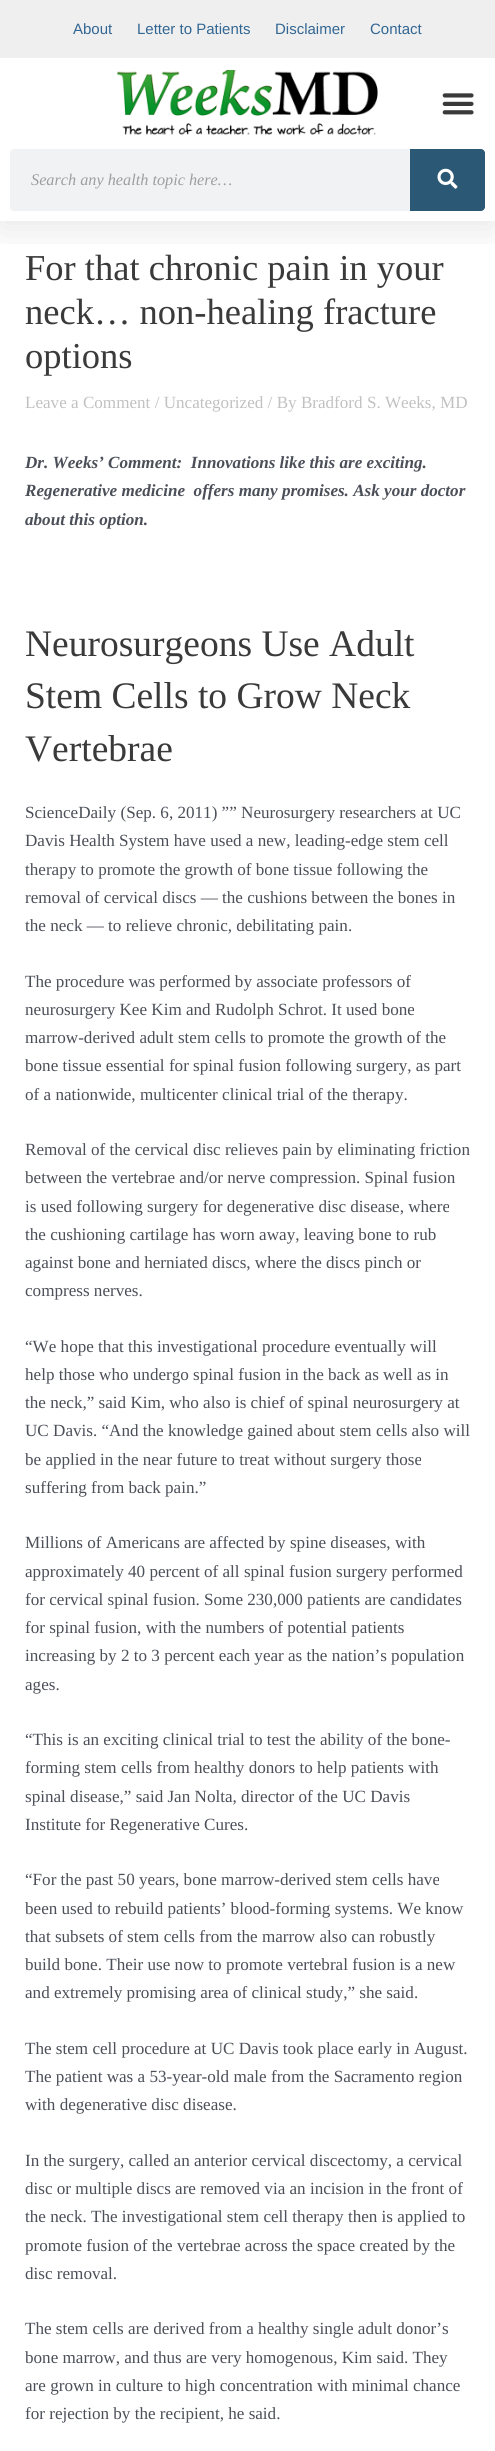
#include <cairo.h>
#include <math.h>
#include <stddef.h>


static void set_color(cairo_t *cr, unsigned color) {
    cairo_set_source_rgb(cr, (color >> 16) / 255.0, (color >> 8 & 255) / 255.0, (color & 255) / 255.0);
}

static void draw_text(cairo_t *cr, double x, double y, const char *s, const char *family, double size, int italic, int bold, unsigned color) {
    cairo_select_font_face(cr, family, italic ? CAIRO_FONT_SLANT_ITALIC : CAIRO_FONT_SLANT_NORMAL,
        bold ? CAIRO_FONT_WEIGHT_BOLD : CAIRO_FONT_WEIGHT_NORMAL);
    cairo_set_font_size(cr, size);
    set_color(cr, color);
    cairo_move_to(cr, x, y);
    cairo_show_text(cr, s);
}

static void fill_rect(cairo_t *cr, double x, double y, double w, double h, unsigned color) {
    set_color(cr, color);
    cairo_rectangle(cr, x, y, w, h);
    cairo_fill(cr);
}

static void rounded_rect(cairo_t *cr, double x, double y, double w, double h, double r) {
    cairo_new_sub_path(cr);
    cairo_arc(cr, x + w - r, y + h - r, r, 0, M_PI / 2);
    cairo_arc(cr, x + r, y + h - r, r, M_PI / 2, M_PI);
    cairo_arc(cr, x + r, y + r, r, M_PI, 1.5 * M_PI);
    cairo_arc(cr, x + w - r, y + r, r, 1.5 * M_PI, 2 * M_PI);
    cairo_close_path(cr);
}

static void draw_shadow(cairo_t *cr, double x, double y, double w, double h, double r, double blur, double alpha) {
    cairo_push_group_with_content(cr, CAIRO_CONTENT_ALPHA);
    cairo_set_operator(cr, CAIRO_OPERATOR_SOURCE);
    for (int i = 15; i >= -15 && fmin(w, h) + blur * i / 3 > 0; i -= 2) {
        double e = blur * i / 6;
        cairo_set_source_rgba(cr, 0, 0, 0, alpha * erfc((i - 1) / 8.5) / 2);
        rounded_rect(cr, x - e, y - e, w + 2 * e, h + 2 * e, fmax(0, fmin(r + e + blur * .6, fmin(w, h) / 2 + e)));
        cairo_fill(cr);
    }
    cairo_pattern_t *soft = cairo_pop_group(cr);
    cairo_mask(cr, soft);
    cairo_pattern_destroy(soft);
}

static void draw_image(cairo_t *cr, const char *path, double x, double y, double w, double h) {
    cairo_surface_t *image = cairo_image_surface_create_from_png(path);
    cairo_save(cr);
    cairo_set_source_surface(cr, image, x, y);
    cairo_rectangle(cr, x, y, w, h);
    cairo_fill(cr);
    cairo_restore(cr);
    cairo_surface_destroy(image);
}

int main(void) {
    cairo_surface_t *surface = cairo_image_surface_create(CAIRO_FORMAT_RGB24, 495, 2451);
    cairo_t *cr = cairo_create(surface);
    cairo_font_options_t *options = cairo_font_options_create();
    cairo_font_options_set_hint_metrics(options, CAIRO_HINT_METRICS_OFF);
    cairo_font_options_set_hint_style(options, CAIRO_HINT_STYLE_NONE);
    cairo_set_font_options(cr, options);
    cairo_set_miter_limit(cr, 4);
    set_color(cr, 0xEFEFEF);
    cairo_paint(cr);
    fill_rect(cr, 0, 221, 495, 2230, 0xFFFFFF);
    cairo_save(cr);
    cairo_rectangle(cr, 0, 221, 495, 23);
    cairo_clip(cr);
    set_color(cr, 0x000000);
    draw_shadow(cr, 0, 6, 495, 222, 0, 19, 0.1);
    cairo_restore(cr);
    draw_text(cr, 73, 34, "About", "Liberation Sans", 15, 0, 0, 0x326693);
    draw_text(cr, 137, 34, "Letter to Patients", "Liberation Sans", 15, 0, 0, 0x326693);
    draw_text(cr, 275, 34, "Disclaimer", "Liberation Sans", 15, 0, 0, 0x326693);
    draw_text(cr, 370, 34, "Contact", "Liberation Sans", 15, 0, 0, 0x326693);
    fill_rect(cr, 0, 58, 495, 163, 0xFFFFFF);
    draw_image(cr, "assets/img1.png", 117, 70, 261, 65);
    draw_image(cr, "assets/img2.png", 442, 93, 32, 22);
    set_color(cr, 0xF1F2F3);
    rounded_rect(cr, 10, 149, 475, 62, 4);
    cairo_fill(cr);
    draw_text(cr, 31, 185, "Search any health topic here…", "Liberation Serif", 16.25, 1, 0, 0x9E9E9E);
    set_color(cr, 0x2A5875);
    cairo_new_path(cr);
    cairo_move_to(cr, 410, 149);
    cairo_line_to(cr, 481, 149);
    cairo_curve_to(cr, 483, 149, 485, 151, 485, 153);
    cairo_line_to(cr, 485, 207);
    cairo_curve_to(cr, 485, 209, 483, 211, 481, 211);
    cairo_line_to(cr, 410, 211);
    cairo_close_path(cr);
    cairo_fill(cr);
    draw_image(cr, "assets/img3.png", 437, 168, 21, 21);
    draw_text(cr, 25, 280, "For that chronic pain in your", "Liberation Serif", 36.5, 0, 0, 0x3A3A3A);
    draw_text(cr, 25, 324, "neck… non-healing fracture", "Liberation Serif", 36.5, 0, 0, 0x3A3A3A);
    draw_text(cr, 25, 368, "options", "Liberation Serif", 36.5, 0, 0, 0x3A3A3A);
    draw_text(cr, 25, 408, "Leave a Comment / Uncategorized / By Bradford S. Weeks, MD", "Liberation Serif", 17.1, 0, 0, 0xC1C1C1);
    draw_text(cr, 25, 468, "Dr. Weeks’ Comment:  Innovations like this are exciting.", "Liberation Serif", 17.1, 1, 1, 0x4B4F58);
    draw_text(cr, 25, 496, "Regenerative medicine  offers many promises. Ask your doctor", "Liberation Serif", 17.1, 1, 1, 0x4B4F58);
    draw_text(cr, 25, 525, "about this option.", "Liberation Serif", 17.1, 1, 1, 0x4B4F58);
    draw_text(cr, 25, 656, "Neurosurgeons Use Adult", "Liberation Serif", 37.5, 0, 0, 0x3A3A3A);
    draw_text(cr, 25, 708, "Stem Cells to Grow Neck", "Liberation Serif", 37.5, 0, 0, 0x3A3A3A);
    draw_text(cr, 25, 761, "Vertebrae", "Liberation Serif", 37.5, 0, 0, 0x3A3A3A);
    draw_text(cr, 25, 818, "ScienceDaily (Sep. 6, 2011) ”” Neurosurgery researchers at UC", "Liberation Serif", 17.1, 0, 0, 0x4B4F58);
    draw_text(cr, 25, 846, "Davis Health System have used a new, leading-edge stem cell", "Liberation Serif", 17.1, 0, 0, 0x4B4F58);
    draw_text(cr, 25, 875, "therapy to promote the growth of bone tissue following the", "Liberation Serif", 17.1, 0, 0, 0x4B4F58);
    draw_text(cr, 25, 903, "removal of cervical discs — the cushions between the bones in", "Liberation Serif", 17.1, 0, 0, 0x4B4F58);
    draw_text(cr, 25, 931, "the neck — to relieve chronic, debilitating pain.", "Liberation Serif", 17.1, 0, 0, 0x4B4F58);
    draw_text(cr, 25, 987, "The procedure was performed by associate professors of", "Liberation Serif", 17.1, 0, 0, 0x4B4F58);
    draw_text(cr, 25, 1015, "neurosurgery Kee Kim and Rudolph Schrot. It used bone", "Liberation Serif", 17.1, 0, 0, 0x4B4F58);
    draw_text(cr, 25, 1043, "marrow-derived adult stem cells to promote the growth of the", "Liberation Serif", 17.1, 0, 0, 0x4B4F58);
    draw_text(cr, 25, 1071, "bone tissue essential for spinal fusion following surgery, as part", "Liberation Serif", 17.1, 0, 0, 0x4B4F58);
    draw_text(cr, 25, 1100, "of a nationwide, multicenter clinical trial of the therapy.", "Liberation Serif", 17.1, 0, 0, 0x4B4F58);
    draw_text(cr, 25, 1155, "Removal of the cervical disc relieves pain by eliminating friction", "Liberation Serif", 17.1, 0, 0, 0x4B4F58);
    draw_text(cr, 25, 1183, "between the vertebrae and/or nerve compression. Spinal fusion", "Liberation Serif", 17.1, 0, 0, 0x4B4F58);
    draw_text(cr, 25, 1212, "is used following surgery for degenerative disc disease, where", "Liberation Serif", 17.1, 0, 0, 0x4B4F58);
    draw_text(cr, 25, 1240, "the cushioning cartilage has worn away, leaving bone to rub", "Liberation Serif", 17.1, 0, 0, 0x4B4F58);
    draw_text(cr, 25, 1268, "against bone and herniated discs, where the discs pinch or", "Liberation Serif", 17.1, 0, 0, 0x4B4F58);
    draw_text(cr, 25, 1296, "compress nerves.", "Liberation Serif", 17.1, 0, 0, 0x4B4F58);
    draw_text(cr, 25, 1352, "“We hope that this investigational procedure eventually will", "Liberation Serif", 17.1, 0, 0, 0x4B4F58);
    draw_text(cr, 25, 1380, "help those who undergo spinal fusion in the back as well as in", "Liberation Serif", 17.1, 0, 0, 0x4B4F58);
    draw_text(cr, 25, 1408, "the neck,” said Kim, who also is chief of spinal neurosurgery at", "Liberation Serif", 17.1, 0, 0, 0x4B4F58);
    draw_text(cr, 25, 1436, "UC Davis. “And the knowledge gained about stem cells also will", "Liberation Serif", 17.1, 0, 0, 0x4B4F58);
    draw_text(cr, 25, 1465, "be applied in the near future to treat without surgery those", "Liberation Serif", 17.1, 0, 0, 0x4B4F58);
    draw_text(cr, 25, 1493, "suffering from back pain.”", "Liberation Serif", 17.1, 0, 0, 0x4B4F58);
    draw_text(cr, 25, 1548, "Millions of Americans are affected by spine diseases, with", "Liberation Serif", 17.1, 0, 0, 0x4B4F58);
    draw_text(cr, 25, 1577, "approximately 40 percent of all spinal fusion surgery performed", "Liberation Serif", 17.1, 0, 0, 0x4B4F58);
    draw_text(cr, 25, 1605, "for cervical spinal fusion. Some 230,000 patients are candidates", "Liberation Serif", 17.1, 0, 0, 0x4B4F58);
    draw_text(cr, 25, 1633, "for spinal fusion, with the numbers of potential patients", "Liberation Serif", 17.1, 0, 0, 0x4B4F58);
    draw_text(cr, 25, 1661, "increasing by 2 to 3 percent each year as the nation’s population", "Liberation Serif", 17.1, 0, 0, 0x4B4F58);
    draw_text(cr, 25, 1690, "ages.", "Liberation Serif", 17.1, 0, 0, 0x4B4F58);
    draw_text(cr, 25, 1745, "“This is an exciting clinical trial to test the ability of the bone-", "Liberation Serif", 17.1, 0, 0, 0x4B4F58);
    draw_text(cr, 25, 1773, "forming stem cells from healthy donors to help patients with", "Liberation Serif", 17.1, 0, 0, 0x4B4F58);
    draw_text(cr, 25, 1802, "spinal disease,” said Jan Nolta, director of the UC Davis", "Liberation Serif", 17.1, 0, 0, 0x4B4F58);
    draw_text(cr, 25, 1830, "Institute for Regenerative Cures.", "Liberation Serif", 17.1, 0, 0, 0x4B4F58);
    draw_text(cr, 25, 1885, "“For the past 50 years, bone marrow-derived stem cells have", "Liberation Serif", 17.1, 0, 0, 0x4B4F58);
    draw_text(cr, 25, 1914, "been used to rebuild patients’ blood-forming systems. We know", "Liberation Serif", 17.1, 0, 0, 0x4B4F58);
    draw_text(cr, 25, 1942, "that subsets of stem cells from the marrow also can robustly", "Liberation Serif", 17.1, 0, 0, 0x4B4F58);
    draw_text(cr, 25, 1970, "build bone. Their use now to promote vertebral fusion is a new", "Liberation Serif", 17.1, 0, 0, 0x4B4F58);
    draw_text(cr, 25, 1998, "and extremely promising area of clinical study,” she said.", "Liberation Serif", 17.1, 0, 0, 0x4B4F58);
    draw_text(cr, 25, 2054, "The stem cell procedure at UC Davis took place early in August.", "Liberation Serif", 17.1, 0, 0, 0x4B4F58);
    draw_text(cr, 25, 2082, "The patient was a 53-year-old male from the Sacramento region", "Liberation Serif", 17.1, 0, 0, 0x4B4F58);
    draw_text(cr, 25, 2110, "with degenerative disc disease.", "Liberation Serif", 17.1, 0, 0, 0x4B4F58);
    draw_text(cr, 25, 2166, "In the surgery, called an anterior cervical discectomy, a cervical", "Liberation Serif", 17.1, 0, 0, 0x4B4F58);
    draw_text(cr, 25, 2194, "disc or multiple discs are removed via an incision in the front of", "Liberation Serif", 17.1, 0, 0, 0x4B4F58);
    draw_text(cr, 25, 2222, "the neck. The investigational stem cell therapy then is applied to", "Liberation Serif", 17.1, 0, 0, 0x4B4F58);
    draw_text(cr, 25, 2251, "promote fusion of the vertebrae across the space created by the", "Liberation Serif", 17.1, 0, 0, 0x4B4F58);
    draw_text(cr, 25, 2279, "disc removal.", "Liberation Serif", 17.1, 0, 0, 0x4B4F58);
    draw_text(cr, 25, 2334, "The stem cells are derived from a healthy single adult donor’s", "Liberation Serif", 17.1, 0, 0, 0x4B4F58);
    draw_text(cr, 25, 2363, "bone marrow, and thus are very homogenous, Kim said. They", "Liberation Serif", 17.1, 0, 0, 0x4B4F58);
    draw_text(cr, 25, 2391, "are grown in culture to high concentration with minimal chance", "Liberation Serif", 17.1, 0, 0, 0x4B4F58);
    draw_text(cr, 25, 2419, "for rejection by the recipient, he said.", "Liberation Serif", 17.1, 0, 0, 0x4B4F58);
    cairo_surface_write_to_png(surface, "output.png");
    cairo_font_options_destroy(options);
    cairo_destroy(cr);
    cairo_surface_destroy(surface);
    return 0;
}
